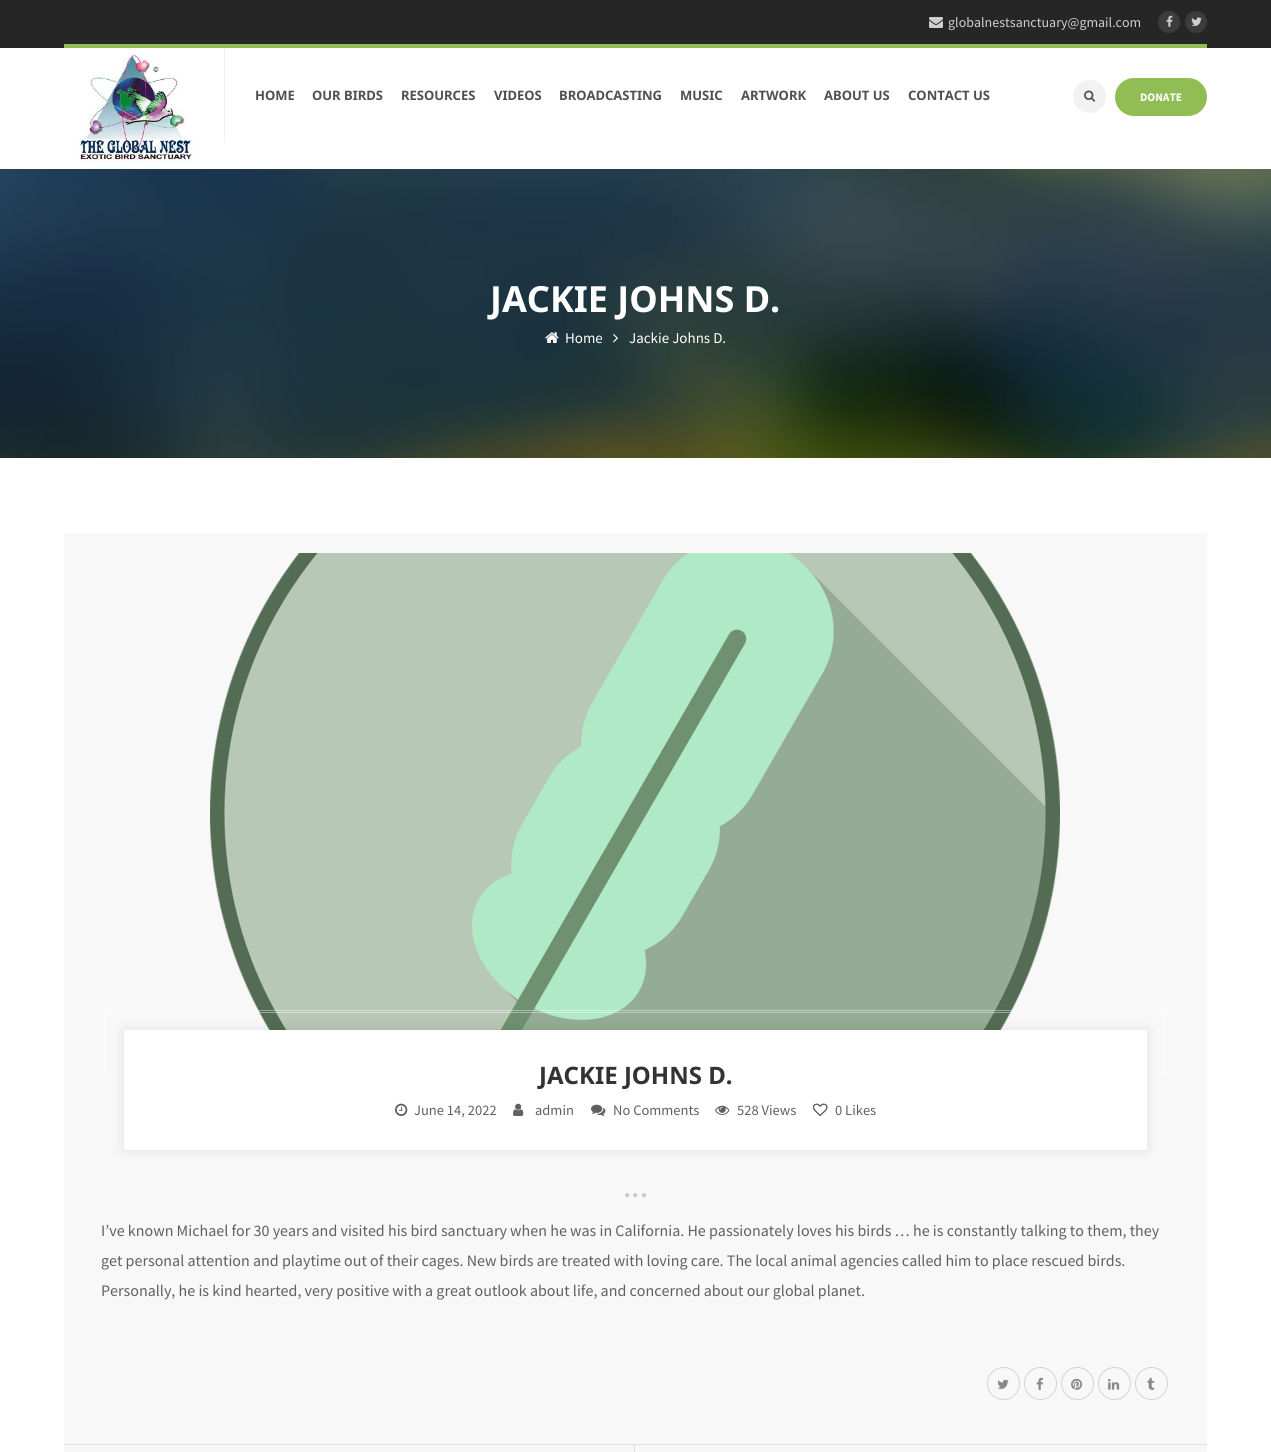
#include <cairo.h>
#include <math.h>
#include <stddef.h>


static void set_color(cairo_t *cr, unsigned color) {
    cairo_set_source_rgb(cr, (color >> 16) / 255.0, (color >> 8 & 255) / 255.0, (color & 255) / 255.0);
}

static void draw_text(cairo_t *cr, double x, double y, const char *s, const char *family, double size, int italic, int bold, unsigned color) {
    cairo_select_font_face(cr, family, italic ? CAIRO_FONT_SLANT_ITALIC : CAIRO_FONT_SLANT_NORMAL,
        bold ? CAIRO_FONT_WEIGHT_BOLD : CAIRO_FONT_WEIGHT_NORMAL);
    cairo_set_font_size(cr, size);
    set_color(cr, color);
    cairo_move_to(cr, x, y);
    cairo_show_text(cr, s);
}

static void fill_rect(cairo_t *cr, double x, double y, double w, double h, unsigned color) {
    set_color(cr, color);
    cairo_rectangle(cr, x, y, w, h);
    cairo_fill(cr);
}

static void rounded_rect(cairo_t *cr, double x, double y, double w, double h, double r) {
    cairo_new_sub_path(cr);
    cairo_arc(cr, x + w - r, y + h - r, r, 0, M_PI / 2);
    cairo_arc(cr, x + r, y + h - r, r, M_PI / 2, M_PI);
    cairo_arc(cr, x + r, y + r, r, M_PI, 1.5 * M_PI);
    cairo_arc(cr, x + w - r, y + r, r, 1.5 * M_PI, 2 * M_PI);
    cairo_close_path(cr);
}

static void draw_shadow(cairo_t *cr, double x, double y, double w, double h, double r, double blur, double alpha) {
    cairo_push_group_with_content(cr, CAIRO_CONTENT_ALPHA);
    cairo_set_operator(cr, CAIRO_OPERATOR_SOURCE);
    for (int i = 15; i >= -15 && fmin(w, h) + blur * i / 3 > 0; i -= 2) {
        double e = blur * i / 6;
        cairo_set_source_rgba(cr, 0, 0, 0, alpha * erfc((i - 1) / 8.5) / 2);
        rounded_rect(cr, x - e, y - e, w + 2 * e, h + 2 * e, fmax(0, fmin(r + e + blur * .6, fmin(w, h) / 2 + e)));
        cairo_fill(cr);
    }
    cairo_pattern_t *soft = cairo_pop_group(cr);
    cairo_mask(cr, soft);
    cairo_pattern_destroy(soft);
}

static void draw_image(cairo_t *cr, const char *path, double x, double y, double w, double h) {
    cairo_surface_t *image = cairo_image_surface_create_from_png(path);
    cairo_save(cr);
    cairo_set_source_surface(cr, image, x, y);
    cairo_rectangle(cr, x, y, w, h);
    cairo_fill(cr);
    cairo_restore(cr);
    cairo_surface_destroy(image);
}

int main(void) {
    cairo_surface_t *surface = cairo_image_surface_create(CAIRO_FORMAT_RGB24, 1271, 1452);
    cairo_t *cr = cairo_create(surface);
    cairo_font_options_t *options = cairo_font_options_create();
    cairo_font_options_set_hint_metrics(options, CAIRO_HINT_METRICS_OFF);
    cairo_font_options_set_hint_style(options, CAIRO_HINT_STYLE_NONE);
    cairo_set_font_options(cr, options);
    cairo_set_miter_limit(cr, 4);
    set_color(cr, 0xFFFFFF);
    cairo_paint(cr);
    fill_rect(cr, 0, 0, 1271, 48, 0x262626);
    draw_image(cr, "assets/img1.png", 929, 17, 14, 11);
    draw_text(cr, 948, 27, "globalnestsanctuary@gmail.com", "Source Sans Pro", 14, 0, 0, 0xCECECE);
    set_color(cr, 0x3C3C3C);
    cairo_new_path(cr);
    cairo_arc(cr, 1169, 22, 11, 0, 2 * M_PI);
    cairo_fill(cr);
    draw_image(cr, "assets/img2.png", 1166, 15, 7, 12);
    cairo_arc(cr, 1196, 22, 11, 0, 2 * M_PI);
    cairo_fill(cr);
    draw_image(cr, "assets/img3.png", 1191, 17, 11, 9);
    fill_rect(cr, 64, 44, 1143, 4, 0x90BE54);
    draw_image(cr, "assets/img4.png", 74, 53, 120, 110);
    fill_rect(cr, 224, 48, 1, 95, 0xF2F2F2);
    draw_text(cr, 255, 100, "HOME", "Noto Sans", 13, 0, 1, 0x505050);
    draw_text(cr, 312, 100, "OUR BIRDS", "Noto Sans", 13, 0, 1, 0x505050);
    draw_text(cr, 401, 100, "RESOURCES", "Noto Sans", 13, 0, 1, 0x505050);
    draw_text(cr, 494, 100, "VIDEOS", "Noto Sans", 13, 0, 1, 0x505050);
    draw_text(cr, 559, 100, "BROADCASTING", "Noto Sans", 13, 0, 1, 0x505050);
    draw_text(cr, 680, 100, "MUSIC", "Noto Sans", 13, 0, 1, 0x505050);
    draw_text(cr, 741, 100, "ARTWORK", "Noto Sans", 13, 0, 1, 0x505050);
    draw_text(cr, 824, 100, "ABOUT US", "Noto Sans", 13, 0, 1, 0x505050);
    draw_text(cr, 908, 100, "CONTACT US", "Noto Sans", 13, 0, 1, 0x505050);
    set_color(cr, 0xF2F2F2);
    cairo_new_path(cr);
    cairo_arc(cr, 1089.5, 96.5, 16.5, 0, 2 * M_PI);
    cairo_fill(cr);
    draw_image(cr, "assets/img5.png", 1084, 90, 12, 12);
    set_color(cr, 0x90BE54);
    rounded_rect(cr, 1115, 78, 92, 38, 19);
    cairo_fill(cr);
    draw_text(cr, 1140, 101, "DONATE", "Source Sans Pro", 11.5, 0, 1, 0xFFFFFF);
    draw_image(cr, "assets/img6.png", 0, 169, 1271, 289);
    draw_text(cr, 490, 312, "JACKIE JOHNS D.", "Noto Sans", 36, 0, 1, 0xFFFFFF);
    draw_image(cr, "assets/img7.png", 545, 332, 14, 11);
    draw_text(cr, 565, 343, "Home", "Source Sans Pro", 15, 0, 0, 0xFFFFFF);
    draw_image(cr, "assets/img8.png", 613, 334, 5, 9);
    draw_text(cr, 629, 343, "Jackie Johns D.", "Source Sans Pro", 15, 0, 0, 0xFFFFFF);
    fill_rect(cr, 64, 533, 1143, 911, 0xF8F8F8);
    draw_image(cr, "assets/img9.png", 210, 553, 850, 477);
    cairo_set_source_rgba(cr, 1, 1, 1, 0.4);
    cairo_rectangle(cr, 104, 1010, 1063, 1);
    cairo_fill(cr);
    cairo_rectangle(cr, 104, 1012, 1063, 1);
    cairo_fill(cr);
    cairo_rectangle(cr, 1164, 1010, 1, 65);
    cairo_fill(cr);
    cairo_rectangle(cr, 1166, 1010, 1, 65);
    cairo_fill(cr);
    cairo_rectangle(cr, 104, 1010, 1, 65);
    cairo_fill(cr);
    cairo_rectangle(cr, 106, 1010, 1, 65);
    cairo_fill(cr);
    set_color(cr, 0x000000);
    draw_shadow(cr, 124, 1030, 1023, 120, 0, 6, 0.1);
    fill_rect(cr, 124, 1030, 1023, 120, 0xFFFFFF);
    draw_text(cr, 539, 1084, "JACKIE JOHNS D.", "Noto Sans", 24, 0, 1, 0x333333);
    draw_image(cr, "assets/img10.png", 395, 1103, 13, 13);
    draw_text(cr, 414, 1115, "June 14, 2022", "Source Sans Pro", 14.5, 0, 0, 0x606060);
    draw_image(cr, "assets/img11.png", 513, 1103, 11, 13);
    draw_text(cr, 535, 1115, "admin", "Source Sans Pro", 14.5, 0, 0, 0x606060);
    draw_image(cr, "assets/img12.png", 591, 1104, 15, 12);
    draw_text(cr, 613, 1115, "No Comments", "Source Sans Pro", 14.5, 0, 0, 0x606060);
    draw_image(cr, "assets/img13.png", 715, 1105, 15, 10);
    draw_text(cr, 737, 1115, "528 Views", "Source Sans Pro", 14.5, 0, 0, 0x606060);
    draw_image(cr, "assets/img14.png", 813, 1103, 15, 13);
    draw_image(cr, "assets/img15.png", 813, 1103, 15, 13);
    draw_text(cr, 835, 1115, "0 Likes", "Source Sans Pro", 14.5, 0, 0, 0x606060);
    draw_image(cr, "assets/img16.png", 625, 1193, 5, 5);
    draw_image(cr, "assets/img16.png", 633, 1193, 5, 5);
    draw_image(cr, "assets/img16.png", 642, 1193, 5, 5);
    draw_text(cr, 101, 1236, "I’ve known Michael for 30 years and visited his bird sanctuary when he was in California. He passionately loves his birds … he is constantly talking to them, they", "Source Sans Pro", 16, 0, 0, 0x606060);
    draw_text(cr, 101, 1266, "get personal attention and playtime out of their cages. New birds are treated with loving care. The local animal agencies called him to place rescued birds.", "Source Sans Pro", 16, 0, 0, 0x606060);
    draw_text(cr, 101, 1296, "Personally, he is kind hearted, very positive with a great outlook about life, and concerned about our global planet.", "Source Sans Pro", 16, 0, 0, 0x606060);
    cairo_new_path(cr);
    cairo_arc(cr, 1003.5, 1383.5, 16, 0, 2 * M_PI);
    set_color(cr, 0xD3D3D3);
    cairo_set_line_width(cr, 1);
    cairo_stroke(cr);
    draw_image(cr, "assets/img17.png", 997, 1379, 12, 10);
    cairo_arc(cr, 1040.5, 1383.5, 16, 0, 2 * M_PI);
    cairo_stroke(cr);
    draw_image(cr, "assets/img18.png", 1036, 1377, 7, 13);
    cairo_arc(cr, 1077.5, 1383.5, 16, 0, 2 * M_PI);
    cairo_stroke(cr);
    draw_image(cr, "assets/img19.png", 1071, 1378, 12, 12);
    cairo_arc(cr, 1114.5, 1383.5, 16, 0, 2 * M_PI);
    cairo_stroke(cr);
    draw_image(cr, "assets/img20.png", 1108, 1379, 12, 11);
    cairo_arc(cr, 1151.5, 1383.5, 16, 0, 2 * M_PI);
    cairo_stroke(cr);
    draw_image(cr, "assets/img21.png", 1147, 1377, 8, 13);
    fill_rect(cr, 64, 1445, 1143, 7, 0xF7F7F7);
    fill_rect(cr, 64, 1444, 1143, 1, 0xDEDEDE);
    fill_rect(cr, 634, 1445, 1, 7, 0xDEDEDE);
    cairo_surface_write_to_png(surface, "output.png");
    cairo_font_options_destroy(options);
    cairo_destroy(cr);
    cairo_surface_destroy(surface);
    return 0;
}
